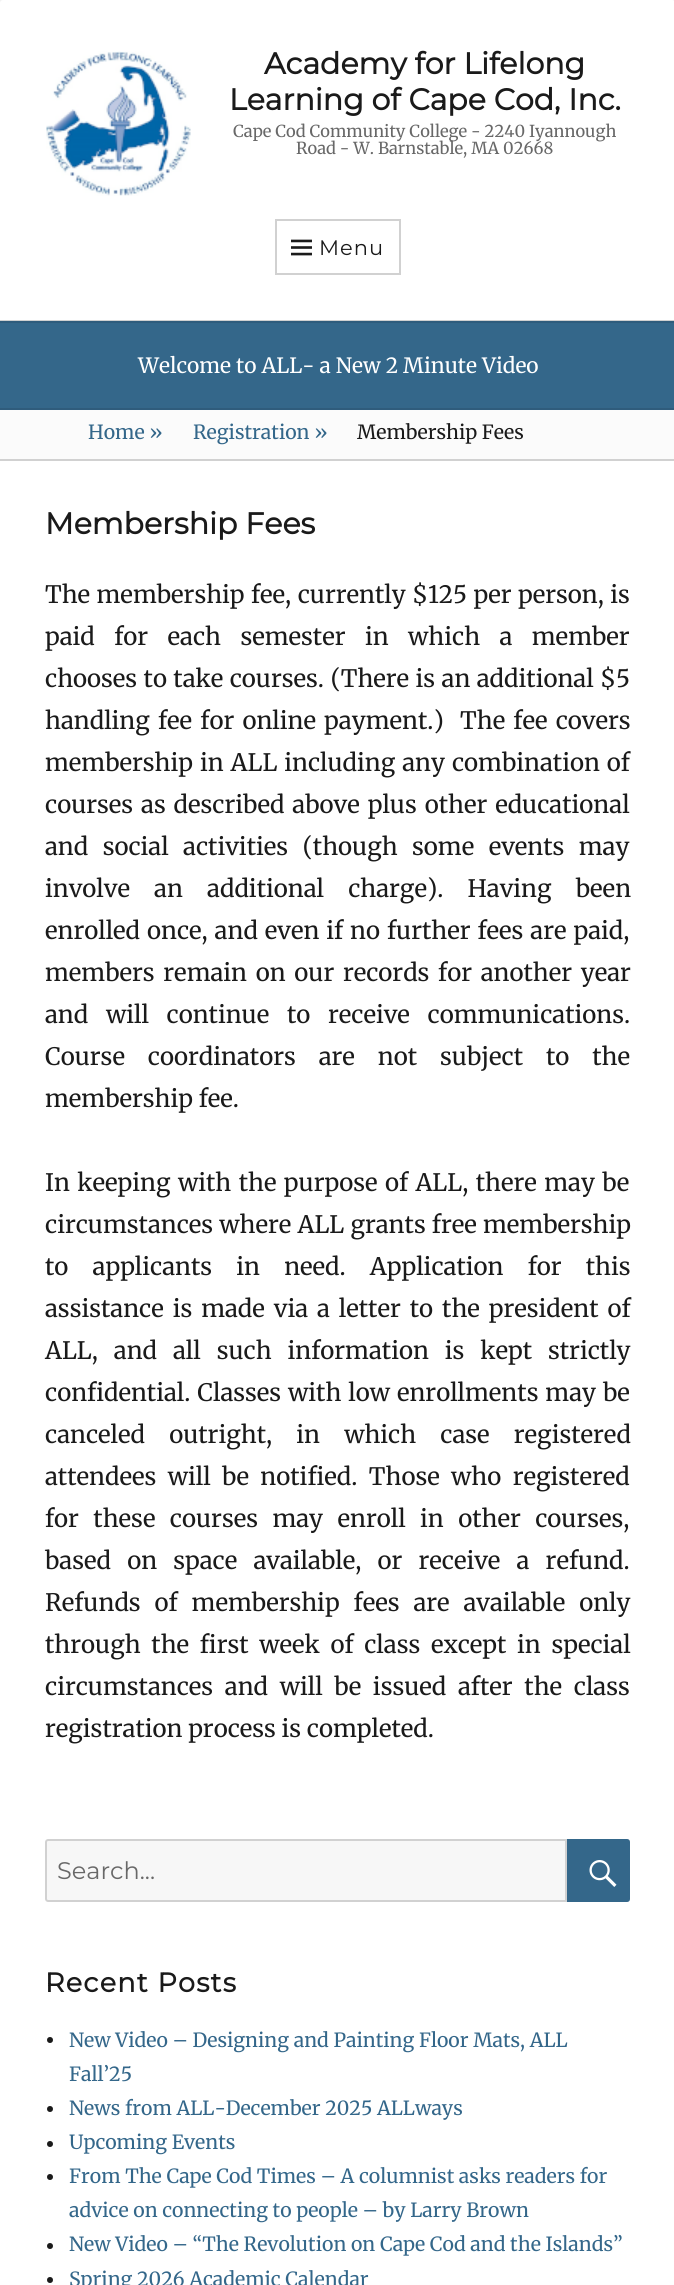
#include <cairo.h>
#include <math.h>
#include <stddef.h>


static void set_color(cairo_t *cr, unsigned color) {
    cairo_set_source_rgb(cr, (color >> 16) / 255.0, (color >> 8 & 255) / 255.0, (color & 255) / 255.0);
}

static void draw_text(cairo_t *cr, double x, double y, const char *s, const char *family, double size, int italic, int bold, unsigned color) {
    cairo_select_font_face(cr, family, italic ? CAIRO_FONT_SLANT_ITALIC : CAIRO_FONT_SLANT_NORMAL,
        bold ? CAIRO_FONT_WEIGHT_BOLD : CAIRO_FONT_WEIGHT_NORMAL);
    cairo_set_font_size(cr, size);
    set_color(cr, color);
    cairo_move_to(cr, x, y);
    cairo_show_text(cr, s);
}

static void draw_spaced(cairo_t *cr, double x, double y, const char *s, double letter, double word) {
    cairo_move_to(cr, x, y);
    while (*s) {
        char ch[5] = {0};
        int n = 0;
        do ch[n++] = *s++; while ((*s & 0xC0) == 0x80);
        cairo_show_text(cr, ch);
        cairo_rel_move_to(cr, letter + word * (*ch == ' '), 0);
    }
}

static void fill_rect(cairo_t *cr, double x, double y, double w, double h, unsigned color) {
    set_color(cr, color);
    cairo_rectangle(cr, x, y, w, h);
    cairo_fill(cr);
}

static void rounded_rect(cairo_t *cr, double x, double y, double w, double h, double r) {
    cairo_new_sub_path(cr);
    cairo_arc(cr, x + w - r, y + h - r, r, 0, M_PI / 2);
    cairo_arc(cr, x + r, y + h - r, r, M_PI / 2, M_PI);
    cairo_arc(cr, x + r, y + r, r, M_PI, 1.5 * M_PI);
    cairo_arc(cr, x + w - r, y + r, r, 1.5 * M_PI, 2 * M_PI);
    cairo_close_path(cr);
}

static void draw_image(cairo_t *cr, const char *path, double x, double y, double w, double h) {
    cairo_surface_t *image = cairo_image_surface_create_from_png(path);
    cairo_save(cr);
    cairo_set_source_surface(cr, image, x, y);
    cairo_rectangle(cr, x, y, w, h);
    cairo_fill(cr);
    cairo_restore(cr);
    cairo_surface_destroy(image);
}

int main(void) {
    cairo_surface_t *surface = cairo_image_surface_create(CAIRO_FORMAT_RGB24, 674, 2285);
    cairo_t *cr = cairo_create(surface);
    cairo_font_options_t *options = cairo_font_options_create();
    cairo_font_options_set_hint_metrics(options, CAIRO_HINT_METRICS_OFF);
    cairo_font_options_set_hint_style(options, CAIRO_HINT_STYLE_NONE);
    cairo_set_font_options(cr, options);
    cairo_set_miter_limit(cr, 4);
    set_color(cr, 0xF2F2F2);
    cairo_paint(cr);
    set_color(cr, 0xFFFFFF);
    rounded_rect(cr, 0, 0, 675, 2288, 3);
    cairo_fill(cr);
    fill_rect(cr, 0, 320, 674, 1, 0xD1D1D1);
    draw_image(cr, "assets/img1.png", 46, 51, 145, 145);
    draw_text(cr, 264, 74, "Academy for Lifelong", "Montserrat", 30, 0, 1, 0x1A1A1A);
    draw_text(cr, 229, 110, "Learning of Cape Cod, Inc.", "Montserrat", 30, 0, 1, 0x1A1A1A);
    draw_text(cr, 233, 137, "Cape Cod Community College - 2240 Iyannough", "Merriweather Light", 16.5, 0, 0, 0x686868);
    draw_text(cr, 296, 154, "Road - W. Barnstable, MA 02668", "Merriweather Light", 16.5, 0, 0, 0x686868);
    cairo_rectangle(cr, 276, 220, 124, 54);
    set_color(cr, 0xD1D1D1);
    cairo_stroke(cr);
    draw_image(cr, "assets/img2.png", 291, 239, 21, 17);
    cairo_select_font_face(cr, "Montserrat Thin", CAIRO_FONT_SLANT_NORMAL, CAIRO_FONT_WEIGHT_NORMAL);
    cairo_set_font_size(cr, 21);
    set_color(cr, 0x1A1A1A);
    draw_spaced(cr, 319, 255, "Menu", 1, 0);
    fill_rect(cr, 0, 323, 674, 85, 0x34678A);
    fill_rect(cr, 0, 321, 674, 2, 0x2F5C7C);
    fill_rect(cr, 0, 408, 674, 2, 0x2F5C7C);
    draw_text(cr, 138, 373, "Welcome to ALL- a New 2 Minute Video", "Merriweather Light", 21, 0, 0, 0xFFFFFF);
    fill_rect(cr, 0, 410, 674, 49, 0xFBFBFB);
    fill_rect(cr, 0, 459, 674, 2, 0xD1D1D1);
    draw_text(cr, 88, 439, "Home »", "Merriweather Light", 19.5, 0, 0, 0x34678A);
    draw_text(cr, 193, 439, "Registration »", "Merriweather Light", 19.5, 0, 0, 0x34678A);
    draw_text(cr, 357, 439, "Membership Fees", "Merriweather Light", 19.5, 0, 0, 0x1A1A1A);
    draw_text(cr, 45, 534, "Membership Fees", "Montserrat", 30, 0, 1, 0x1A1A1A);
    cairo_select_font_face(cr, "Merriweather Light", CAIRO_FONT_SLANT_NORMAL, CAIRO_FONT_WEIGHT_NORMAL);
    cairo_set_font_size(cr, 24);
    draw_spaced(cr, 45, 603, "The membership fee, currently $125 per person, is", 0, 0.75);
    draw_spaced(cr, 45, 645, "paid for each semester in which a member", 0, 13.75);
    draw_spaced(cr, 45, 687, "chooses to take courses. (There is an additional $5", 0, 0.75);
    draw_spaced(cr, 45, 729, "handling fee for online payment.)  The fee covers", 0, 2.5);
    draw_spaced(cr, 45, 771, "membership in ALL including any combination of", 0, 1.25);
    draw_spaced(cr, 45, 813, "courses as described above plus other educational", 0, 2.25);
    draw_spaced(cr, 45, 855, "and social activities (though some events may", 0, 8.75);
    draw_spaced(cr, 45, 897, "involve an additional charge). Having been", 0, 18.5);
    draw_spaced(cr, 45, 939, "enrolled once, and even if no further fees are paid,", 0, 1.25);
    draw_spaced(cr, 45, 981, "members remain on our records for another year", 0, 3);
    draw_spaced(cr, 45, 1023, "and will continue to receive communications.", 0, 12);
    draw_spaced(cr, 45, 1065, "Course coordinators are not subject to the", 0, 17.25);
    draw_text(cr, 45, 1107, "membership fee.", "Merriweather Light", 24, 0, 0, 0x1A1A1A);
    draw_spaced(cr, 45, 1191, "In keeping with the purpose of ALL, there may be", 0, 1.75);
    draw_spaced(cr, 45, 1233, "circumstances where ALL grants free membership", 0, 0.5);
    draw_spaced(cr, 45, 1275, "to applicants in need. Application for this", 0, 18.5);
    draw_spaced(cr, 45, 1317, "assistance is made via a letter to the president of", 0, 3.25);
    draw_spaced(cr, 45, 1359, "ALL, and all such information is kept strictly", 0, 10.25);
    draw_spaced(cr, 45, 1401, "confidential. Classes with low enrollments may be", 0, 1.25);
    draw_spaced(cr, 45, 1443, "canceled outright, in which case registered", 0, 18.5);
    draw_spaced(cr, 45, 1485, "attendees will be notified. Those who registered", 0, 5.75);
    draw_spaced(cr, 45, 1527, "for these courses may enroll in other courses,", 0, 8.75);
    draw_spaced(cr, 45, 1569, "based on space available, or receive a refund.", 0, 10.5);
    draw_spaced(cr, 45, 1611, "Refunds of membership fees are available only", 0, 8.25);
    draw_spaced(cr, 45, 1653, "through the first week of class except in special", 0, 5);
    draw_spaced(cr, 45, 1695, "circumstances and will be issued after the class", 0, 6);
    draw_text(cr, 45, 1737, "registration process is completed.", "Merriweather Light", 24, 0, 0, 0x1A1A1A);
    set_color(cr, 0xF7F7F7);
    cairo_new_path(cr);
    cairo_move_to(cr, 48, 1840);
    cairo_line_to(cr, 566, 1840);
    cairo_line_to(cr, 566, 1901);
    cairo_line_to(cr, 48, 1901);
    cairo_curve_to(cr, 47, 1901, 46, 1900, 46, 1899);
    cairo_line_to(cr, 46, 1842);
    cairo_curve_to(cr, 46, 1841, 47, 1840, 48, 1840);
    cairo_close_path(cr);
    cairo_fill_preserve(cr);
    set_color(cr, 0xD1D1D1);
    cairo_stroke(cr);
    draw_text(cr, 57, 1879, "Search...", "Montserrat Thin", 24, 0, 0, 0x686868);
    set_color(cr, 0x34678A);
    cairo_new_path(cr);
    cairo_move_to(cr, 568.5, 1840.5);
    cairo_line_to(cr, 627, 1840.5);
    cairo_curve_to(cr, 628, 1840.5, 628.5, 1841, 628.5, 1842);
    cairo_line_to(cr, 628.5, 1899);
    cairo_curve_to(cr, 628.5, 1900, 628, 1900.5, 627, 1900.5);
    cairo_line_to(cr, 568.5, 1900.5);
    cairo_close_path(cr);
    cairo_fill_preserve(cr);
    cairo_set_line_width(cr, 3);
    cairo_stroke(cr);
    draw_image(cr, "assets/img3.png", 589, 1860, 28, 27);
    cairo_select_font_face(cr, "Montserrat", CAIRO_FONT_SLANT_NORMAL, CAIRO_FONT_WEIGHT_BOLD);
    cairo_set_font_size(cr, 27);
    set_color(cr, 0x1A1A1A);
    draw_spaced(cr, 45, 1992, "Recent Posts", 1.25, 0);
    cairo_new_path(cr);
    cairo_arc(cr, 50, 2040, 3, 0, 2 * M_PI);
    cairo_fill(cr);
    draw_text(cr, 69, 2047, "New Video – Designing and Painting Floor Mats, ALL", "Merriweather Light", 19.5, 0, 0, 0x34678A);
    draw_text(cr, 69, 2081, "Fall’25", "Merriweather Light", 19.5, 0, 0, 0x34678A);
    set_color(cr, 0x1A1A1A);
    cairo_new_path(cr);
    cairo_arc(cr, 50, 2109, 3, 0, 2 * M_PI);
    cairo_fill(cr);
    draw_text(cr, 69, 2115, "News from ALL-December 2025 ALLways", "Merriweather Light", 19.5, 0, 0, 0x34678A);
    set_color(cr, 0x1A1A1A);
    cairo_new_path(cr);
    cairo_arc(cr, 50, 2144, 3, 0, 2 * M_PI);
    cairo_fill(cr);
    draw_text(cr, 69, 2149, "Upcoming Events", "Merriweather Light", 19.5, 0, 0, 0x34678A);
    set_color(cr, 0x1A1A1A);
    cairo_new_path(cr);
    cairo_arc(cr, 50, 2177, 3, 0, 2 * M_PI);
    cairo_fill(cr);
    draw_text(cr, 69, 2183, "From The Cape Cod Times – A columnist asks readers for", "Merriweather Light", 19.5, 0, 0, 0x34678A);
    draw_text(cr, 69, 2217, "advice on connecting to people – by Larry Brown", "Merriweather Light", 19.5, 0, 0, 0x34678A);
    set_color(cr, 0x1A1A1A);
    cairo_new_path(cr);
    cairo_arc(cr, 50, 2246, 3, 0, 2 * M_PI);
    cairo_fill(cr);
    draw_text(cr, 69, 2251, "New Video – “The Revolution on Cape Cod and the Islands”", "Merriweather Light", 19.5, 0, 0, 0x34678A);
    set_color(cr, 0x1A1A1A);
    cairo_new_path(cr);
    cairo_arc(cr, 50, 2280, 3, 0, 2 * M_PI);
    cairo_fill(cr);
    draw_text(cr, 69, 2286, "Spring 2026 Academic Calendar", "Merriweather Light", 19.5, 0, 0, 0x34678A);
    cairo_surface_write_to_png(surface, "output.png");
    cairo_font_options_destroy(options);
    cairo_destroy(cr);
    cairo_surface_destroy(surface);
    return 0;
}
